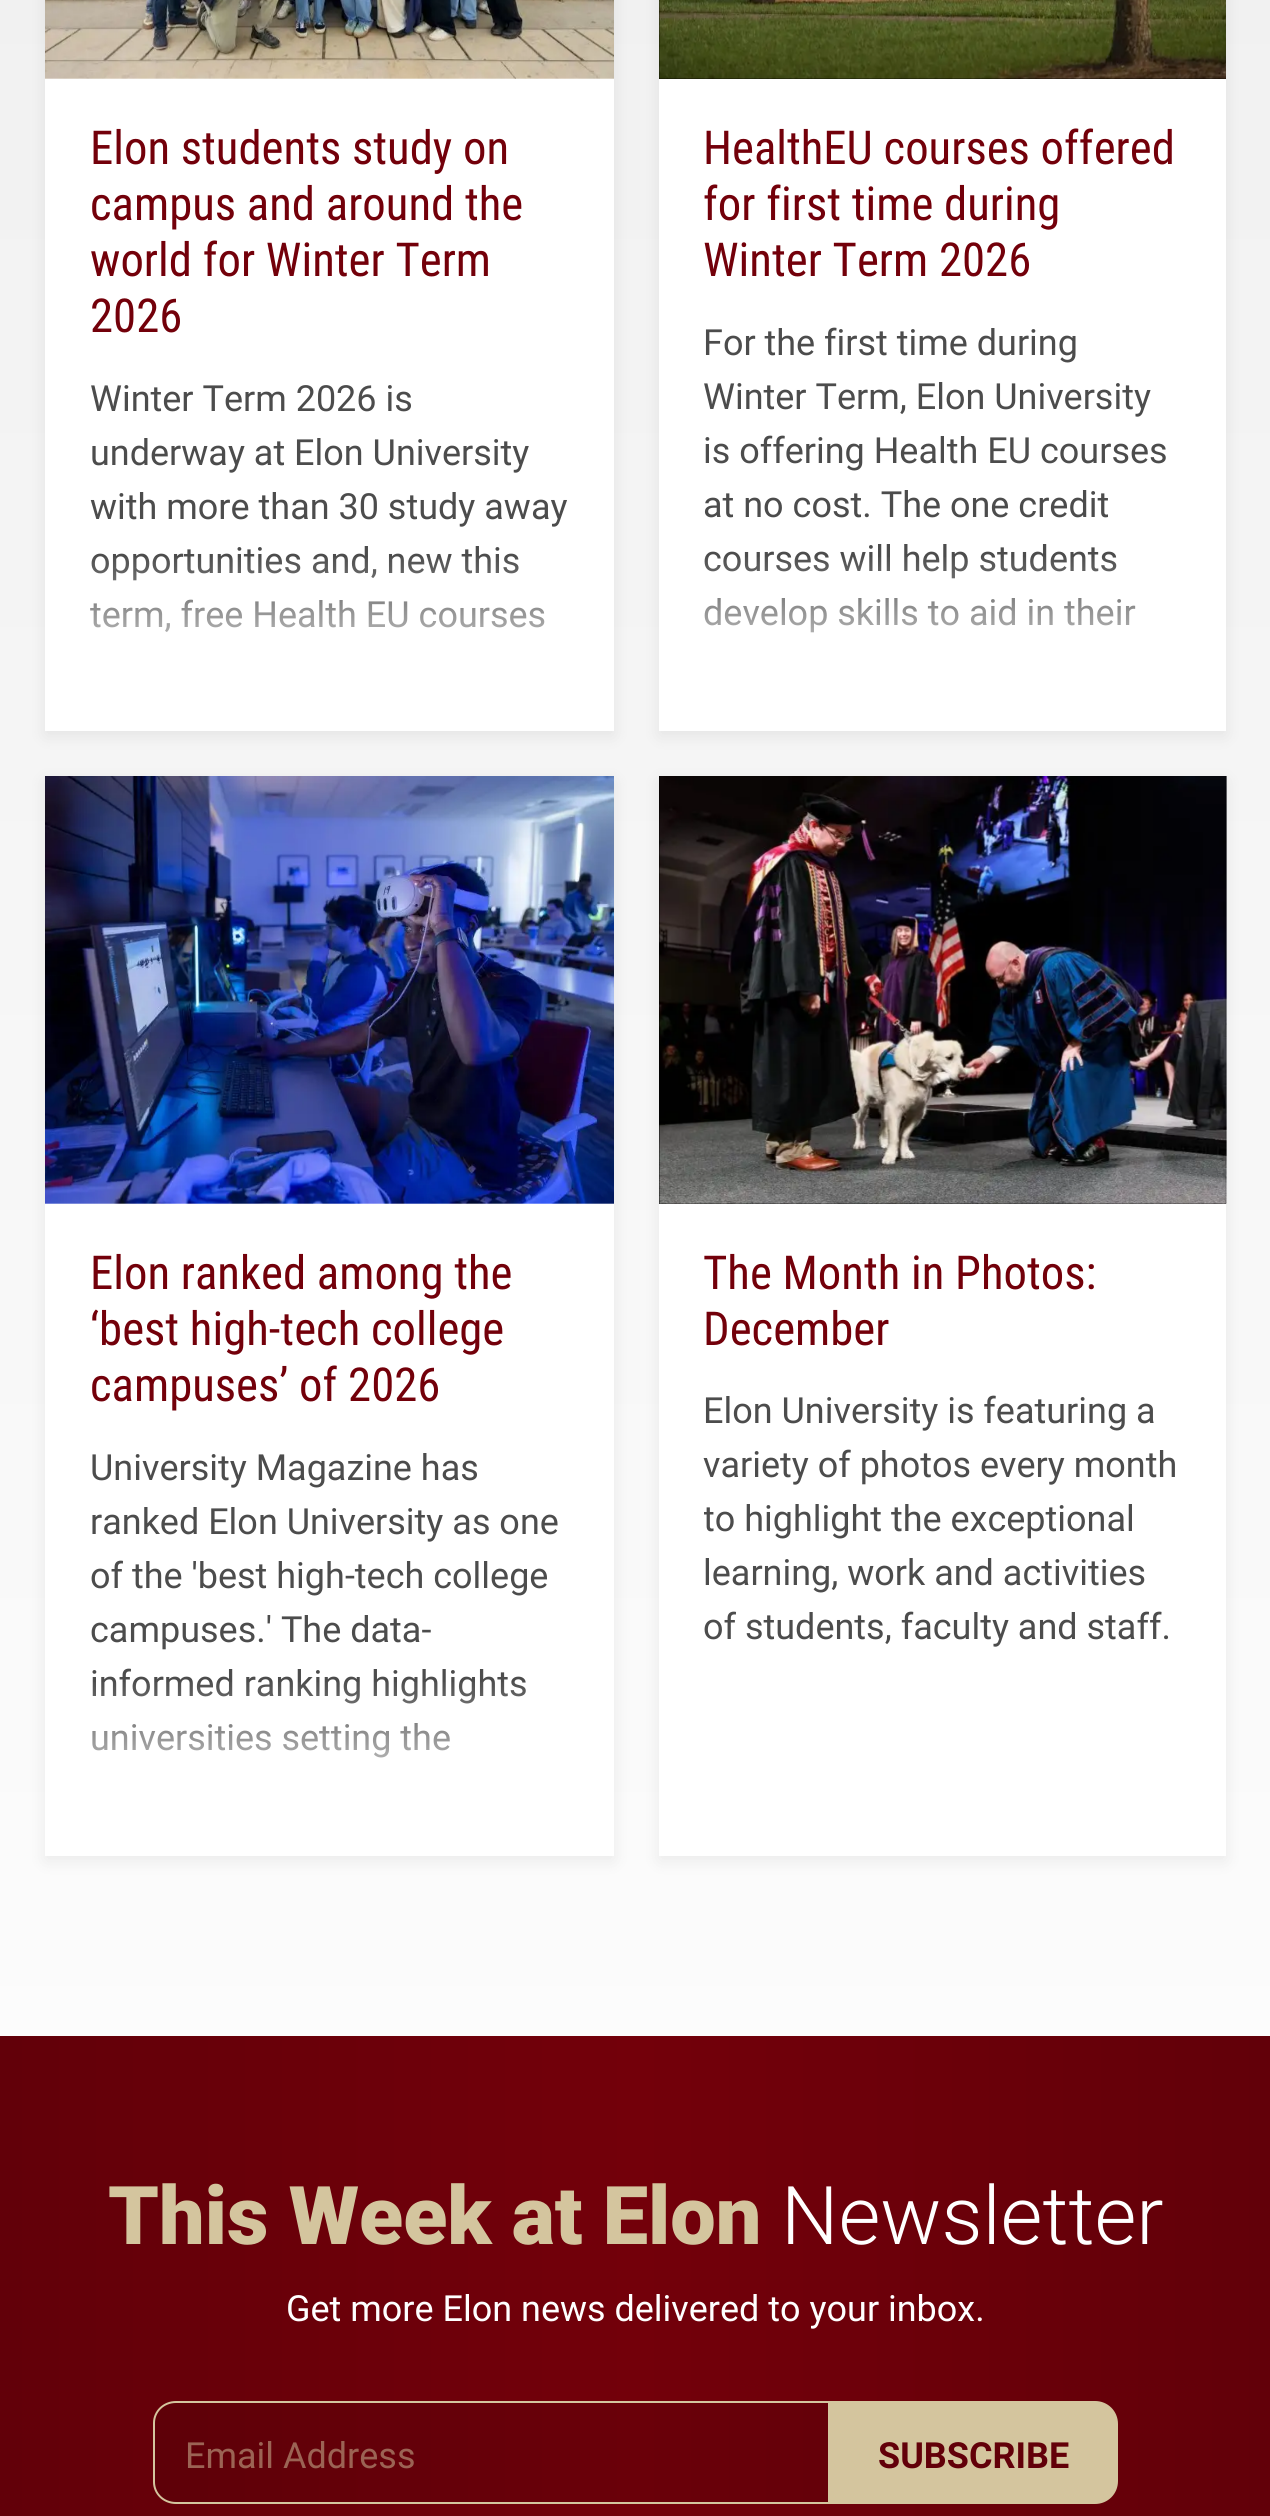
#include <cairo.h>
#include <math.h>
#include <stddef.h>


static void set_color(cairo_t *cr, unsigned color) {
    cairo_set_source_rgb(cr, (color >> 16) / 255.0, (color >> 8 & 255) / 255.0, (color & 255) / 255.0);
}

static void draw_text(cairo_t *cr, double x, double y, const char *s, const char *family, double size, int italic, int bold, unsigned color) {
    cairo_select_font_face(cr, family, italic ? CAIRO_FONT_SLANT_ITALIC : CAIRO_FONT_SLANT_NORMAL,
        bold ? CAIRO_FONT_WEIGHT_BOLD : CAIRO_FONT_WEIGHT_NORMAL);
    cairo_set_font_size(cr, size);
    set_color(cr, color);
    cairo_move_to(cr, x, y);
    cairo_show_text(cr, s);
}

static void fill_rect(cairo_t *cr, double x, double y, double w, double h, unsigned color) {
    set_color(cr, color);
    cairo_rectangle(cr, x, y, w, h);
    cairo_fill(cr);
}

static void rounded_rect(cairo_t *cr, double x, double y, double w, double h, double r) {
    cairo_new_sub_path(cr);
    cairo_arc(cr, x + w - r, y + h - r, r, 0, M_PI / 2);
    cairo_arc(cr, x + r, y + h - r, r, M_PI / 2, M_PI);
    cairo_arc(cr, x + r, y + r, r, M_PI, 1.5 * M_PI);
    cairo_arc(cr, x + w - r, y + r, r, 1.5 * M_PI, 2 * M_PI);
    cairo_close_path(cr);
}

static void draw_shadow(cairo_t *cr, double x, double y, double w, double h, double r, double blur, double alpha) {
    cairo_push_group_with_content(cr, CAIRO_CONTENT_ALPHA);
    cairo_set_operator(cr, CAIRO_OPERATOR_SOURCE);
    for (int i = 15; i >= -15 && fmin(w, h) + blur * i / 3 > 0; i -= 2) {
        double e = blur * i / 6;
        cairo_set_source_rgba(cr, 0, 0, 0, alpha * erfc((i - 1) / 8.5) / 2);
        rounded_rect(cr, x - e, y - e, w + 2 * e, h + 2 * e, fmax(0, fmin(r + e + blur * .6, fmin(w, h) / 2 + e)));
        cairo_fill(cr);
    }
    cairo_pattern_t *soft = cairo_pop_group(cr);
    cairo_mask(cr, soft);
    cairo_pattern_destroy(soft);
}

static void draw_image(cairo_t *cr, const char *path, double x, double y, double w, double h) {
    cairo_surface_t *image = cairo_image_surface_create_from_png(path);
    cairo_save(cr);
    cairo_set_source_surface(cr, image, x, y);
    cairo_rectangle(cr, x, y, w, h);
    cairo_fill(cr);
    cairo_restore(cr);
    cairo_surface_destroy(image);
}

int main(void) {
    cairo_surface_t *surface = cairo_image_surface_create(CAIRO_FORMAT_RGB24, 1270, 2516);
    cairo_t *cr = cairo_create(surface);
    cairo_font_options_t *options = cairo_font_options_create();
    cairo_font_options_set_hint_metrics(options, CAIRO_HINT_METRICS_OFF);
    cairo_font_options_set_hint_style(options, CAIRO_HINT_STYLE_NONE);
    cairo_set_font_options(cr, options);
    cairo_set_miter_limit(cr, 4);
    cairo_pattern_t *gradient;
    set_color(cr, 0xFFFFFF);
    cairo_paint(cr);
    gradient = cairo_pattern_create_linear(636, -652, 636, 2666);
    cairo_pattern_add_color_stop_rgba(gradient, 0, 0.933, 0.933, 0.933, 1);
    cairo_pattern_add_color_stop_rgba(gradient, 1, 1, 1, 1, 1);
    cairo_set_source(cr, gradient);
    cairo_pattern_destroy(gradient);
    cairo_rectangle(cr, 0, 0, 1270, 2036);
    cairo_fill(cr);
    set_color(cr, 0x000000);
    draw_shadow(cr, 45, -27, 569, 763, 0, 9, 0.07);
    fill_rect(cr, 45, 78, 569, 653, 0xFFFFFF);
    draw_image(cr, "assets/img1.png", 45, 0, 569, 79);
    draw_text(cr, 90, 164, "Elon students study on", "Roboto Condensed", 46.75, 0, 0, 0x73000A);
    draw_text(cr, 90, 220, "campus and around the", "Roboto Condensed", 46.75, 0, 0, 0x73000A);
    draw_text(cr, 90, 276, "world for Winter Term", "Roboto Condensed", 46.75, 0, 0, 0x73000A);
    draw_text(cr, 90, 332, "2026", "Roboto Condensed", 46.75, 0, 0, 0x73000A);
    draw_text(cr, 90, 411, "Winter Term 2026 is", "Roboto", 36, 0, 0, 0x4C4C4C);
    draw_text(cr, 90, 465, "underway at Elon University", "Roboto", 36, 0, 0, 0x4C4C4C);
    draw_text(cr, 90, 519, "with more than 30 study away", "Roboto", 36, 0, 0, 0x4C4C4C);
    draw_text(cr, 90, 573, "opportunities and, new this", "Roboto", 36, 0, 0, 0x4C4C4C);
    draw_text(cr, 90, 627, "term, free Health EU courses", "Roboto", 36, 0, 0, 0x4C4C4C);
    gradient = cairo_pattern_create_linear(330, 554, 330, 698);
    cairo_pattern_add_color_stop_rgba(gradient, 0, 1, 1, 1, 0);
    cairo_pattern_add_color_stop_rgba(gradient, 1, 1, 1, 1, 1);
    cairo_set_source(cr, gradient);
    cairo_pattern_destroy(gradient);
    cairo_rectangle(cr, 90, 557, 455, 75);
    cairo_fill(cr);
    set_color(cr, 0x000000);
    draw_shadow(cr, 659, -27, 567, 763, 0, 9, 0.07);
    fill_rect(cr, 659, 79, 567, 652, 0xFFFFFF);
    fill_rect(cr, 659, 0, 567, 79, 0x000000);
    draw_image(cr, "assets/img2.png", 659, 0, 567, 79);
    draw_text(cr, 703, 164, "HealthEU courses offered", "Roboto Condensed", 46.75, 0, 0, 0x73000A);
    draw_text(cr, 703, 220, "for first time during", "Roboto Condensed", 46.75, 0, 0, 0x73000A);
    draw_text(cr, 703, 276, "Winter Term 2026", "Roboto Condensed", 46.75, 0, 0, 0x73000A);
    draw_text(cr, 703, 355, "For the first time during", "Roboto", 36, 0, 0, 0x4C4C4C);
    draw_text(cr, 703, 409, "Winter Term, Elon University", "Roboto", 36, 0, 0, 0x4C4C4C);
    draw_text(cr, 703, 463, "is offering Health EU courses", "Roboto", 36, 0, 0, 0x4C4C4C);
    draw_text(cr, 703, 517, "at no cost. The one credit", "Roboto", 36, 0, 0, 0x4C4C4C);
    draw_text(cr, 703, 571, "courses will help students", "Roboto", 36, 0, 0, 0x4C4C4C);
    draw_text(cr, 703, 625, "develop skills to aid in their", "Roboto", 36, 0, 0, 0x4C4C4C);
    gradient = cairo_pattern_create_linear(943, 554, 943, 698);
    cairo_pattern_add_color_stop_rgba(gradient, 0, 1, 1, 1, 0);
    cairo_pattern_add_color_stop_rgba(gradient, 1, 1, 1, 1, 1);
    cairo_set_source(cr, gradient);
    cairo_pattern_destroy(gradient);
    cairo_rectangle(cr, 704, 557, 432, 76);
    cairo_fill(cr);
    set_color(cr, 0x000000);
    draw_shadow(cr, 45, 781, 569, 1080, 0, 9, 0.07);
    fill_rect(cr, 45, 1203, 569, 653, 0xFFFFFF);
    draw_image(cr, "assets/img3.png", 45, 776, 569, 428);
    draw_text(cr, 90, 1289, "Elon ranked among the", "Roboto Condensed", 46.75, 0, 0, 0x73000A);
    draw_text(cr, 90, 1345, "‘best high-tech college", "Roboto Condensed", 46.75, 0, 0, 0x73000A);
    draw_text(cr, 90, 1401, "campuses’ of 2026", "Roboto Condensed", 46.75, 0, 0, 0x73000A);
    draw_text(cr, 90, 1480, "University Magazine has", "Roboto", 36, 0, 0, 0x4C4C4C);
    draw_text(cr, 90, 1534, "ranked Elon University as one", "Roboto", 36, 0, 0, 0x4C4C4C);
    draw_text(cr, 90, 1588, "of the 'best high-tech college", "Roboto", 36, 0, 0, 0x4C4C4C);
    draw_text(cr, 90, 1642, "campuses.' The data-", "Roboto", 36, 0, 0, 0x4C4C4C);
    draw_text(cr, 90, 1696, "informed ranking highlights", "Roboto", 36, 0, 0, 0x4C4C4C);
    draw_text(cr, 90, 1750, "universities setting the", "Roboto", 36, 0, 0, 0x4C4C4C);
    gradient = cairo_pattern_create_linear(330, 1679, 330, 1823);
    cairo_pattern_add_color_stop_rgba(gradient, 0, 1, 1, 1, 0);
    cairo_pattern_add_color_stop_rgba(gradient, 1, 1, 1, 1, 1);
    cairo_set_source(cr, gradient);
    cairo_pattern_destroy(gradient);
    cairo_rectangle(cr, 92, 1682, 434, 76);
    cairo_fill(cr);
    set_color(cr, 0x000000);
    draw_shadow(cr, 659, 781, 567, 1080, 0, 9, 0.07);
    fill_rect(cr, 659, 1204, 567, 652, 0xFFFFFF);
    fill_rect(cr, 659, 776, 567, 428, 0x000000);
    draw_image(cr, "assets/img4.png", 659, 776, 568, 428);
    draw_text(cr, 703, 1289, "The Month in Photos:", "Roboto Condensed", 46.75, 0, 0, 0x73000A);
    draw_text(cr, 703, 1345, "December", "Roboto Condensed", 46.75, 0, 0, 0x73000A);
    draw_text(cr, 703, 1423, "Elon University is featuring a", "Roboto", 36, 0, 0, 0x4C4C4C);
    draw_text(cr, 703, 1477, "variety of photos every month", "Roboto", 36, 0, 0, 0x4C4C4C);
    cairo_save(cr);
    cairo_rectangle(cr, 704, 1384, 477, 427);
    cairo_clip(cr);
    draw_text(cr, 703, 1531, "to highlight the exceptional", "Roboto", 36, 0, 0, 0x4C4C4C);
    cairo_restore(cr);
    draw_text(cr, 703, 1585, "learning, work and activities", "Roboto", 36, 0, 0, 0x4C4C4C);
    draw_text(cr, 703, 1639, "of students, faculty and staff.", "Roboto", 36, 0, 0, 0x4C4C4C);
    gradient = cairo_pattern_create_linear(0, 2351, 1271, 2351);
    cairo_pattern_add_color_stop_rgba(gradient, 0, 0.384, 0, 0.035, 1);
    cairo_pattern_add_color_stop_rgba(gradient, 0.5, 0.451, 0, 0.039, 1);
    cairo_pattern_add_color_stop_rgba(gradient, 1, 0.384, 0, 0.035, 1);
    cairo_set_source(cr, gradient);
    cairo_pattern_destroy(gradient);
    cairo_rectangle(cr, 0, 2036, 1270, 480);
    cairo_fill(cr);
    draw_text(cr, 108, 2244, "This Week at Elon", "Roboto Black", 81, 0, 0, 0xD4C59E);
    draw_text(cr, 781, 2244, "Newsletter", "Roboto Light", 81, 0, 0, 0xFFFFFF);
    draw_text(cr, 286, 2321, "Get more Elon news delivered to your inbox.", "Roboto", 36, 0, 0, 0xFFFFFF);
    cairo_set_source_rgba(cr, 0, 0, 0, 0.08);
    cairo_new_path(cr);
    cairo_move_to(cr, 175, 2403);
    cairo_line_to(cr, 828, 2403);
    cairo_line_to(cr, 828, 2502);
    cairo_line_to(cr, 175, 2502);
    cairo_curve_to(cr, 164, 2502, 155, 2493, 155, 2482);
    cairo_line_to(cr, 155, 2423);
    cairo_curve_to(cr, 155, 2412, 164, 2403, 175, 2403);
    cairo_close_path(cr);
    cairo_fill(cr);
    set_color(cr, 0xD4C59E);
    cairo_set_fill_rule(cr, CAIRO_FILL_RULE_EVEN_ODD);
    cairo_new_path(cr);
    cairo_move_to(cr, 176, 2401);
    cairo_line_to(cr, 828, 2401);
    cairo_line_to(cr, 828, 2504);
    cairo_line_to(cr, 176, 2504);
    cairo_curve_to(cr, 163, 2504, 153, 2494, 153, 2482);
    cairo_line_to(cr, 153, 2423);
    cairo_curve_to(cr, 153, 2411, 163, 2401, 176, 2401);
    cairo_close_path(cr);
    cairo_move_to(cr, 176, 2403);
    cairo_line_to(cr, 828, 2403);
    cairo_line_to(cr, 828, 2502);
    cairo_line_to(cr, 176, 2502);
    cairo_curve_to(cr, 164, 2502, 155, 2493, 155, 2482);
    cairo_line_to(cr, 155, 2423);
    cairo_curve_to(cr, 155, 2412, 164, 2403, 176, 2403);
    cairo_close_path(cr);
    cairo_fill(cr);
    draw_text(cr, 185, 2468, "Email Address", "Roboto", 36, 0, 0, 0x9B6354);
    set_color(cr, 0xD4C59E);
    cairo_new_path(cr);
    cairo_move_to(cr, 830.5, 2403.5);
    cairo_line_to(cr, 1095, 2403.5);
    cairo_curve_to(cr, 1106.5, 2403.5, 1115.5, 2412.5, 1115.5, 2424);
    cairo_line_to(cr, 1115.5, 2481);
    cairo_curve_to(cr, 1115.5, 2492.5, 1106.5, 2501.5, 1095, 2501.5);
    cairo_line_to(cr, 830.5, 2501.5);
    cairo_close_path(cr);
    cairo_fill_preserve(cr);
    cairo_set_line_width(cr, 5);
    cairo_stroke(cr);
    draw_text(cr, 878, 2468, "SUBSCRIBE", "Roboto", 36, 0, 1, 0x620009);
    cairo_surface_write_to_png(surface, "output.png");
    cairo_font_options_destroy(options);
    cairo_destroy(cr);
    cairo_surface_destroy(surface);
    return 0;
}
